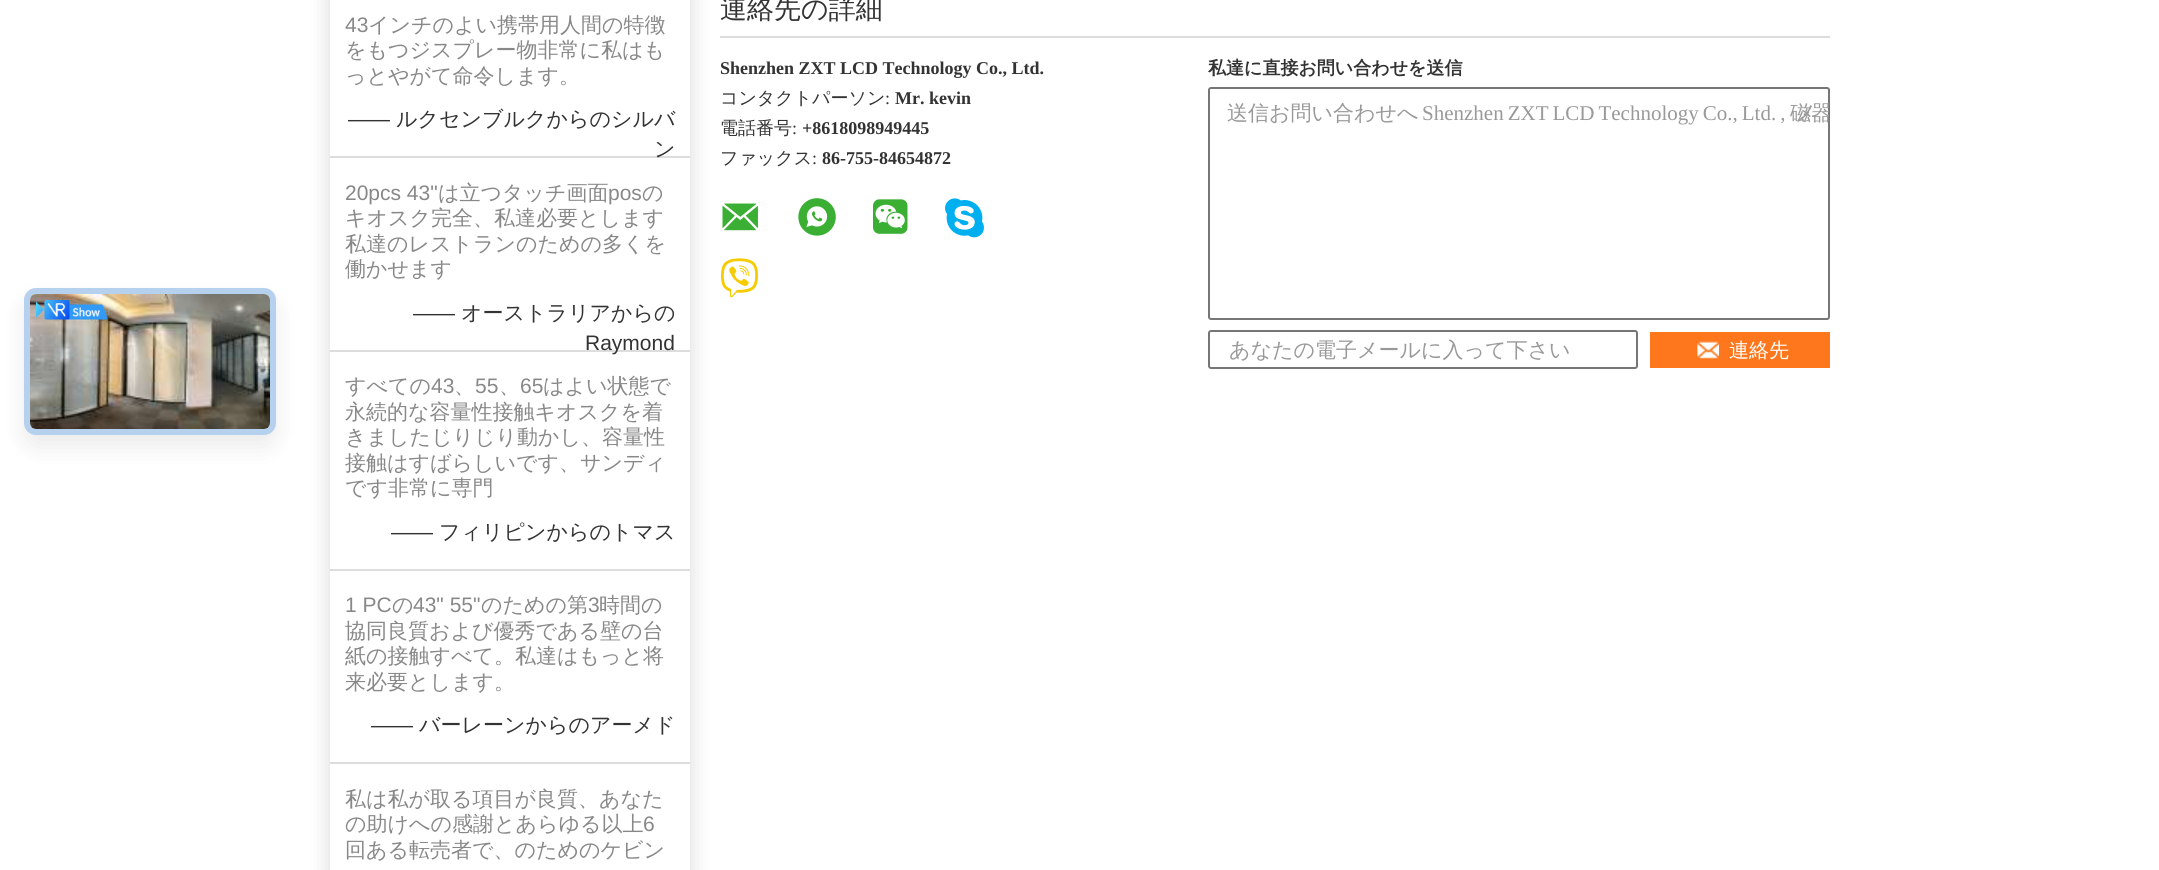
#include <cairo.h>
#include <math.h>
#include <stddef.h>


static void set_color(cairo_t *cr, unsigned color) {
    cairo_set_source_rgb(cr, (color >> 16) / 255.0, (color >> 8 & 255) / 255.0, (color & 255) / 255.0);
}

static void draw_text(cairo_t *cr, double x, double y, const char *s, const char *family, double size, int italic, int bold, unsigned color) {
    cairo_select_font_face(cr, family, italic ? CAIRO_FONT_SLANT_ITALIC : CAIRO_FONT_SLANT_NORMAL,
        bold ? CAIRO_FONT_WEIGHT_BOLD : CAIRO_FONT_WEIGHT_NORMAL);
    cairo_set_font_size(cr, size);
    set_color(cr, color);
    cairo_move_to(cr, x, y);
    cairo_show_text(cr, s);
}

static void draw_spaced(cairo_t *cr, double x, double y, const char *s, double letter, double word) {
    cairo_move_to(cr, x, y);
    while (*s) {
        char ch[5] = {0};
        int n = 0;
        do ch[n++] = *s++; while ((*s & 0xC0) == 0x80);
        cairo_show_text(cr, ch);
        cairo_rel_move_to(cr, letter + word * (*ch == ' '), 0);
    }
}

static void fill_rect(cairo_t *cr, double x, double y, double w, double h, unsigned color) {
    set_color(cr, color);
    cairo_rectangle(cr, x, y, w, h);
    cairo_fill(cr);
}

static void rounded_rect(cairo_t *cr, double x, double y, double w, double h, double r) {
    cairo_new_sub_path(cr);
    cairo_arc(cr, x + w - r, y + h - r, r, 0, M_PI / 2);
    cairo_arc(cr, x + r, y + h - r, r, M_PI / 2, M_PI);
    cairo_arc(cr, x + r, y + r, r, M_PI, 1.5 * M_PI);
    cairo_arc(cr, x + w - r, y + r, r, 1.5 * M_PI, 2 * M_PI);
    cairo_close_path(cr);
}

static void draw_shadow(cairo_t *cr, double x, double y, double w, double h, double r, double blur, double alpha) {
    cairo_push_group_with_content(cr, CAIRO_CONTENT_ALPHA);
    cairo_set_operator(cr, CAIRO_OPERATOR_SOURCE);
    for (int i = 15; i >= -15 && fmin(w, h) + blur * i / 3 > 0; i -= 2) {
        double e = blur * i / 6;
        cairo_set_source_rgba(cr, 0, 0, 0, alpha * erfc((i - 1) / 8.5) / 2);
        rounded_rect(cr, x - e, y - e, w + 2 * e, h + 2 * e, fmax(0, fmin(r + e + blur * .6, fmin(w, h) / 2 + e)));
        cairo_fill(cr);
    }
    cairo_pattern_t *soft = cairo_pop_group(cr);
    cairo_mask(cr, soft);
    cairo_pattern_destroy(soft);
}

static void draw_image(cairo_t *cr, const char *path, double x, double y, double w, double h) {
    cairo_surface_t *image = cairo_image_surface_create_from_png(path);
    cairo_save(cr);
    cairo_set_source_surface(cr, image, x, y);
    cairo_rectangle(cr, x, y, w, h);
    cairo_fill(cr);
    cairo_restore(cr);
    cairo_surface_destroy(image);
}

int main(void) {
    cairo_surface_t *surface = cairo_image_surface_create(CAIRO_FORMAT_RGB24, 2159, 870);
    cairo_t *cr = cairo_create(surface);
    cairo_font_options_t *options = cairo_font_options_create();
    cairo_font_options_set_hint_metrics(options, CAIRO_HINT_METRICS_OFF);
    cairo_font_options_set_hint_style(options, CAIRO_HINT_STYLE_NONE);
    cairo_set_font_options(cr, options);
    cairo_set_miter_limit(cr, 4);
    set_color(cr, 0xFFFFFF);
    cairo_paint(cr);
    set_color(cr, 0x000000);
    draw_shadow(cr, 24, 300, 252, 147, 12, 12, 0.08);
    set_color(cr, 0xEEEEEE);
    rounded_rect(cr, 24, 288, 252, 147, 12);
    cairo_fill(cr);
    rounded_rect(cr, 27, 291, 246, 141, 9);
    cairo_set_source_rgba(cr, 0.016, 0.471, 0.929, 0.24);
    cairo_set_line_width(cr, 6);
    cairo_stroke(cr);
    draw_image(cr, "assets/img1.png", 30, 294, 240, 135);
    draw_image(cr, "assets/img2.png", 36, 300, 72, 20);
    cairo_save(cr);
    cairo_set_fill_rule(cr, CAIRO_FILL_RULE_EVEN_ODD);
    cairo_new_path(cr);
    cairo_move_to(cr, 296, 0);
    cairo_line_to(cr, 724, 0);
    cairo_line_to(cr, 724, 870);
    cairo_line_to(cr, 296, 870);
    cairo_close_path(cr);
    cairo_move_to(cr, 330, -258);
    cairo_line_to(cr, 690, -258);
    cairo_line_to(cr, 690, 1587);
    cairo_line_to(cr, 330, 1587);
    cairo_close_path(cr);
    cairo_clip(cr);
    set_color(cr, 0x000000);
    draw_shadow(cr, 330, -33, 360, 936, 0, 11, 0.15);
    cairo_restore(cr);
    draw_text(cr, 345, 32, "43", "Liberation Sans", 21, 0, 0, 0x888888);
    draw_text(cr, 368, 32, "インチのよい携帯用人間の特徴", "WenQuanYi Zen Hei Medium", 21, 0, 0, 0x888888);
    draw_text(cr, 345, 57, "をもつジスプレー物非常に私はも", "WenQuanYi Zen Hei Medium", 21, 0, 0, 0x888888);
    draw_text(cr, 345, 83, "っとやがて命令します。", "WenQuanYi Zen Hei Medium", 21, 0, 0, 0x888888);
    draw_text(cr, 348, 126, "——", "Liberation Sans", 21, 0, 0, 0x333333);
    draw_text(cr, 396, 126, "ルクセンブルクからのシルバ", "WenQuanYi Zen Hei Medium", 21, 0, 0, 0x333333);
    fill_rect(cr, 330, 156, 360, 2, 0xDDDDDD);
    draw_text(cr, 654, 156, "ン", "WenQuanYi Zen Hei Medium", 21, 0, 0, 0x333333);
    draw_text(cr, 345, 200, "20pcs 43\"", "Liberation Sans", 21, 0, 0, 0x888888);
    draw_text(cr, 438, 200, "は立つタッチ画面", "WenQuanYi Zen Hei Medium", 21, 0, 0, 0x888888);
    draw_text(cr, 608, 200, "pos", "Liberation Sans", 21, 0, 0, 0x888888);
    draw_text(cr, 642, 200, "の", "WenQuanYi Zen Hei Medium", 21, 0, 0, 0x888888);
    draw_text(cr, 345, 225, "キオスク完全、私達必要とします", "WenQuanYi Zen Hei Medium", 21, 0, 0, 0x888888);
    draw_text(cr, 345, 251, "私達のレストランのための多くを", "WenQuanYi Zen Hei Medium", 21, 0, 0, 0x888888);
    draw_text(cr, 345, 276, "働かせます", "WenQuanYi Zen Hei Medium", 21, 0, 0, 0x888888);
    draw_text(cr, 413, 320, "——", "Liberation Sans", 21, 0, 0, 0x333333);
    draw_text(cr, 461, 320, "オーストラリアからの", "WenQuanYi Zen Hei Medium", 21, 0, 0, 0x333333);
    fill_rect(cr, 330, 350, 360, 2, 0xDDDDDD);
    draw_text(cr, 585, 350, "Raymond", "Liberation Sans", 21, 0, 0, 0x333333);
    draw_text(cr, 345, 393, "すべての", "WenQuanYi Zen Hei Medium", 21, 0, 0, 0x888888);
    draw_text(cr, 431, 393, "43", "Liberation Sans", 21, 0, 0, 0x888888);
    draw_text(cr, 454, 393, "、", "WenQuanYi Zen Hei Medium", 21, 0, 0, 0x888888);
    draw_text(cr, 475, 393, "55", "Liberation Sans", 21, 0, 0, 0x888888);
    draw_text(cr, 499, 393, "、", "WenQuanYi Zen Hei Medium", 21, 0, 0, 0x888888);
    draw_text(cr, 520, 393, "65", "Liberation Sans", 21, 0, 0, 0x888888);
    draw_text(cr, 543, 393, "はよい状態で", "WenQuanYi Zen Hei Medium", 21, 0, 0, 0x888888);
    draw_text(cr, 345, 419, "永続的な容量性接触キオスクを着", "WenQuanYi Zen Hei Medium", 21, 0, 0, 0x888888);
    draw_text(cr, 345, 444, "きましたじりじり動かし、容量性", "WenQuanYi Zen Hei Medium", 21, 0, 0, 0x888888);
    draw_text(cr, 345, 470, "接触はすばらしいです、サンディ", "WenQuanYi Zen Hei Medium", 21, 0, 0, 0x888888);
    draw_text(cr, 345, 495, "です非常に専門", "WenQuanYi Zen Hei Medium", 21, 0, 0, 0x888888);
    draw_text(cr, 391, 539, "——", "Liberation Sans", 21, 0, 0, 0x333333);
    draw_text(cr, 439, 539, "フィリピンからのトマス", "WenQuanYi Zen Hei Medium", 21, 0, 0, 0x333333);
    fill_rect(cr, 330, 569, 360, 2, 0xDDDDDD);
    draw_text(cr, 345, 612, "1 PC", "Liberation Sans", 21, 0, 0, 0x888888);
    draw_text(cr, 392, 612, "の", "WenQuanYi Zen Hei Medium", 21, 0, 0, 0x888888);
    draw_text(cr, 413, 612, "43\" 55\"", "Liberation Sans", 21, 0, 0, 0x888888);
    draw_text(cr, 481, 612, "のための第", "WenQuanYi Zen Hei Medium", 21, 0, 0, 0x888888);
    draw_text(cr, 588, 612, "3", "Liberation Sans", 21, 0, 0, 0x888888);
    draw_text(cr, 599, 612, "時間の", "WenQuanYi Zen Hei Medium", 21, 0, 0, 0x888888);
    draw_text(cr, 345, 638, "協同良質および優秀である壁の台", "WenQuanYi Zen Hei Medium", 21, 0, 0, 0x888888);
    draw_text(cr, 345, 663, "紙の接触すべて。私達はもっと将", "WenQuanYi Zen Hei Medium", 21, 0, 0, 0x888888);
    draw_text(cr, 345, 689, "来必要とします。", "WenQuanYi Zen Hei Medium", 21, 0, 0, 0x888888);
    draw_text(cr, 371, 732, "——", "Liberation Sans", 21, 0, 0, 0x333333);
    draw_text(cr, 419, 732, "バーレーンからのアーメド", "WenQuanYi Zen Hei Medium", 21, 0, 0, 0x333333);
    fill_rect(cr, 330, 762, 360, 2, 0xDDDDDD);
    draw_text(cr, 345, 806, "私は私が取る項目が良質、あなた", "WenQuanYi Zen Hei Medium", 21, 0, 0, 0x888888);
    draw_text(cr, 345, 831, "の助けへの感謝とあらゆる以上", "WenQuanYi Zen Hei Medium", 21, 0, 0, 0x888888);
    draw_text(cr, 643, 831, "6", "Liberation Sans", 21, 0, 0, 0x888888);
    draw_text(cr, 345, 857, "回ある転売者で、のためのケビン", "WenQuanYi Zen Hei Medium", 21, 0, 0, 0x888888);
    fill_rect(cr, 720, 36, 1110, 2, 0xDDDDDD);
    draw_text(cr, 720, 18, "連絡先の詳細", "WenQuanYi Zen Hei Medium", 27, 0, 0, 0x333333);
    draw_text(cr, 720, 74, "Shenzhen ZXT LCD Technology Co., Ltd.", "Liberation Serif", 18, 0, 1, 0x333333);
    draw_text(cr, 720, 104, "コンタクトパーソン", "WenQuanYi Zen Hei Medium", 18, 0, 0, 0x333333);
    draw_text(cr, 885, 104, ":", "Liberation Serif", 18, 0, 0, 0x333333);
    draw_text(cr, 895, 104, "Mr. kevin", "Liberation Serif", 18, 0, 1, 0x333333);
    draw_text(cr, 720, 134, "電話番号", "WenQuanYi Zen Hei Medium", 18, 0, 0, 0x333333);
    draw_text(cr, 792, 134, ":", "Liberation Serif", 18, 0, 0, 0x333333);
    draw_text(cr, 802, 134, "+8618098949445", "Liberation Serif", 18, 0, 1, 0x333333);
    draw_text(cr, 720, 164, "ファックス", "WenQuanYi Zen Hei Medium", 18, 0, 0, 0x333333);
    draw_text(cr, 812, 164, ":", "Liberation Serif", 18, 0, 0, 0x333333);
    draw_text(cr, 822, 164, "86-755-84654872", "Liberation Serif", 18, 0, 1, 0x333333);
    draw_image(cr, "assets/img3.png", 722, 203, 36, 28);
    draw_image(cr, "assets/img4.png", 798, 198, 38, 38);
    draw_image(cr, "assets/img5.png", 873, 199, 35, 35);
    draw_image(cr, "assets/img6.png", 945, 198, 39, 40);
    draw_image(cr, "assets/img7.png", 720, 258, 38, 40);
    draw_text(cr, 1208, 74, "私達に直接お問い合わせを送信", "WenQuanYi Zen Hei", 18, 0, 1, 0x333333);
    rounded_rect(cr, 1209, 88, 620, 231, 2);
    set_color(cr, 0x767676);
    cairo_set_line_width(cr, 2);
    cairo_stroke(cr);
    draw_text(cr, 1227, 120, "送信お問い合わせへ", "WenQuanYi Zen Hei Medium", 21, 0, 0, 0x999999);
    cairo_select_font_face(cr, "Liberation Serif", CAIRO_FONT_SLANT_NORMAL, CAIRO_FONT_WEIGHT_NORMAL);
    draw_spaced(cr, 1422, 120, "Shenzhen ZXT LCD Technology Co., Ltd. ,", 0, -1.25);
    cairo_save(cr);
    cairo_rectangle(cr, 1209, 89, 620, 229);
    cairo_clip(cr);
    draw_text(cr, 1790, 120, "磁器", "WenQuanYi Zen Hei Medium", 21, 0, 0, 0x999999);
    cairo_restore(cr);
    draw_text(cr, 1795, 120, "メ", "WenQuanYi Zen Hei Medium", 21, 0, 0, 0x999999);
    rounded_rect(cr, 1209, 331, 428, 37, 2);
    set_color(cr, 0x767676);
    cairo_stroke(cr);
    draw_text(cr, 1229, 357, "あなたの電子メールに入って下さい", "WenQuanYi Zen Hei Medium", 21, 0, 0, 0x999999);
    fill_rect(cr, 1650, 332, 180, 36, 0xFF771C);
    draw_image(cr, "assets/img8.png", 1697, 341, 22, 18);
    draw_text(cr, 1729, 357, "連絡先", "WenQuanYi Zen Hei Medium", 20, 0, 0, 0xFFFFFF);
    cairo_surface_write_to_png(surface, "output.png");
    cairo_font_options_destroy(options);
    cairo_destroy(cr);
    cairo_surface_destroy(surface);
    return 0;
}
